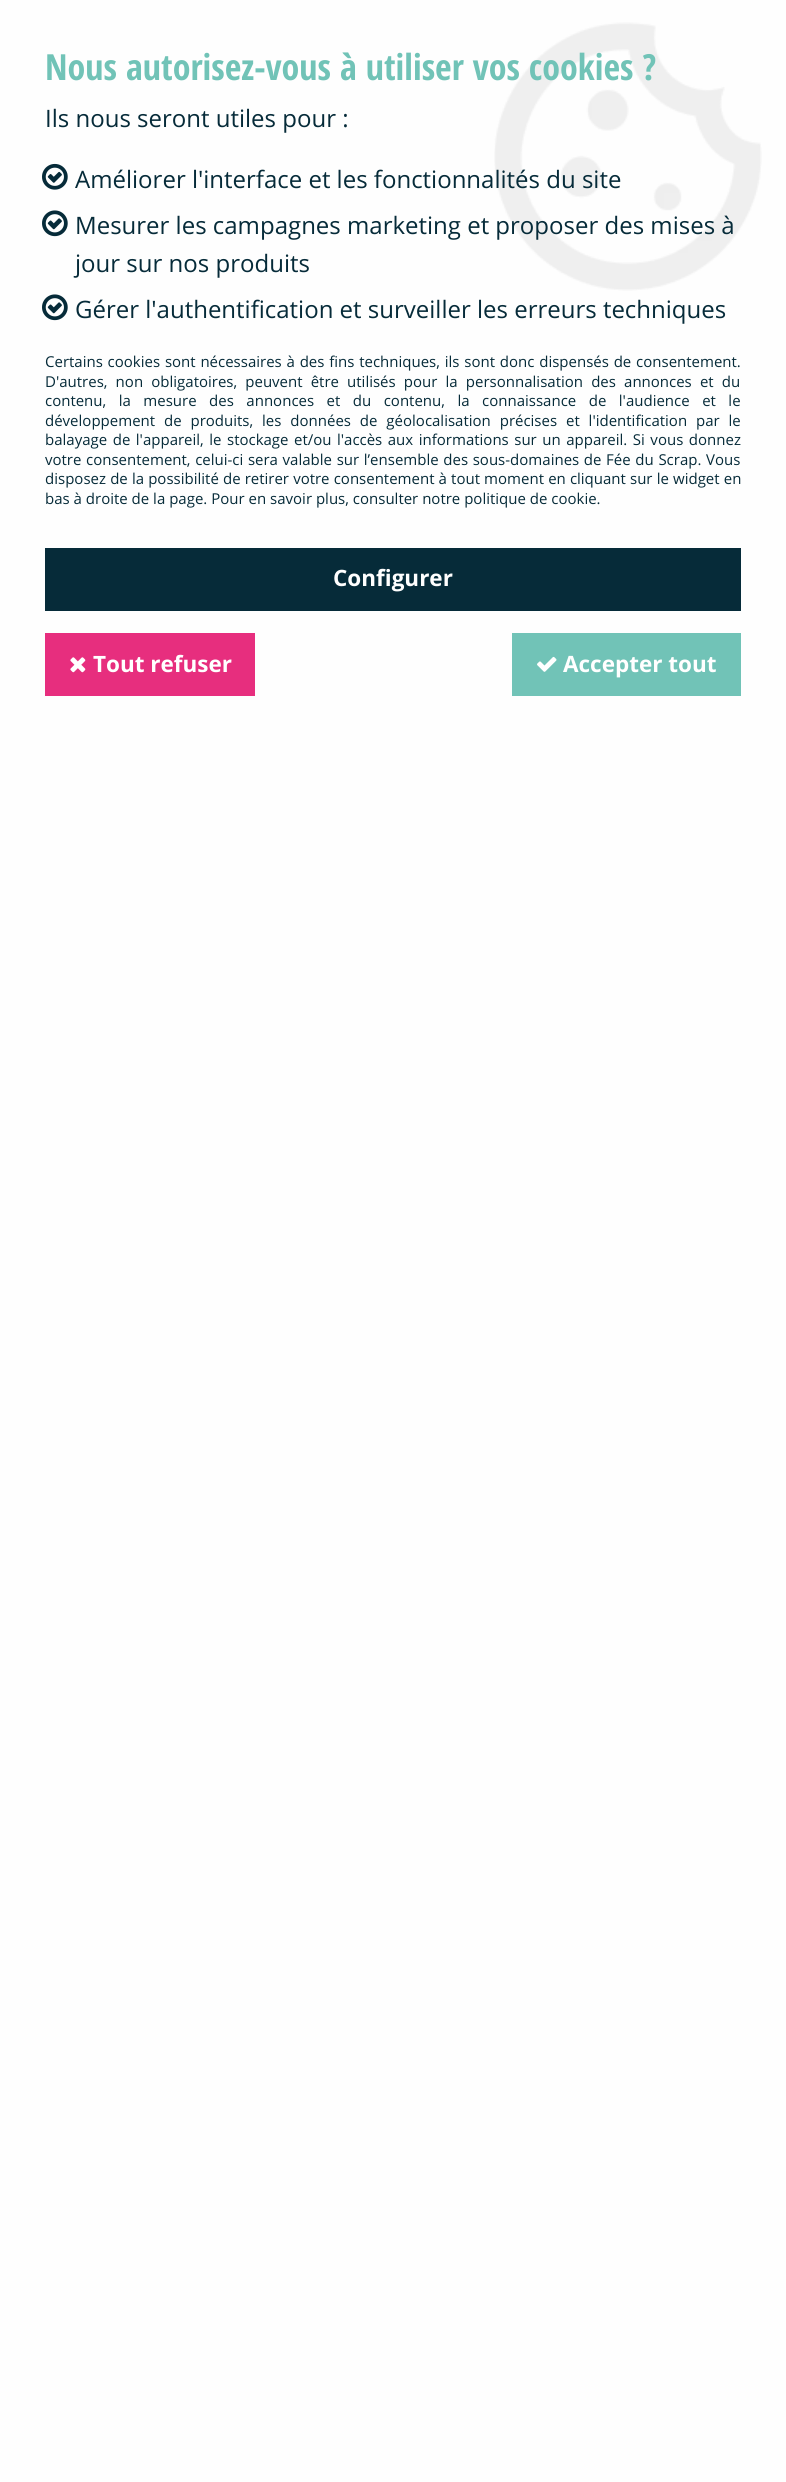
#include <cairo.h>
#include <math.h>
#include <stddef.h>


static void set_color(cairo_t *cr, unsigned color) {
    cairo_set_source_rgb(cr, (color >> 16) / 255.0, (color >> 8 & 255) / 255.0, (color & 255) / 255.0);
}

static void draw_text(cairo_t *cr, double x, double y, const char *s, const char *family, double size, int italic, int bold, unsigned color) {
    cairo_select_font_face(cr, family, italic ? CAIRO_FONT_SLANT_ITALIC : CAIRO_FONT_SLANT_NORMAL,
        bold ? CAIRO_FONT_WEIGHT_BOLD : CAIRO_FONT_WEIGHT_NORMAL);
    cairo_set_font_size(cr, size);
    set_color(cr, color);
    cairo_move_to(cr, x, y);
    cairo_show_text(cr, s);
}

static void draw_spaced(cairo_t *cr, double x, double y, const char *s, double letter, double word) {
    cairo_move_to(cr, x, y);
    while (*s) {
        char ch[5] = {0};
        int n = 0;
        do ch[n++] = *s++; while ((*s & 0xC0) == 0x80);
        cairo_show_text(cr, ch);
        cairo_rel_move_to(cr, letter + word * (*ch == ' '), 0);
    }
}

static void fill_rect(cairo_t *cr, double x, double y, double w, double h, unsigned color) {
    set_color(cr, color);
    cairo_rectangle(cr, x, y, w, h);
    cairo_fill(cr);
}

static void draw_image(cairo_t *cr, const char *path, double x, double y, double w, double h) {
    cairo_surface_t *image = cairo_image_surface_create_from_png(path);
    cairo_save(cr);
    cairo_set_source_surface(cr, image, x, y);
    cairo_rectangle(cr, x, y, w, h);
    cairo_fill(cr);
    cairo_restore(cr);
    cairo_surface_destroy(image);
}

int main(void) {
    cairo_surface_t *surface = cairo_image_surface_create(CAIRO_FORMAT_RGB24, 786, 2482);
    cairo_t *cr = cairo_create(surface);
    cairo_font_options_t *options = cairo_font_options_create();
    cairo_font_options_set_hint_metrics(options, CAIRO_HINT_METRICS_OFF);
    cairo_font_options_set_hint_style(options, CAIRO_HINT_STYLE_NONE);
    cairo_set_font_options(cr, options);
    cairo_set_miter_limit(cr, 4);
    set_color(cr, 0xFEFEFE);
    cairo_paint(cr);
    draw_image(cr, "assets/img1.png", 494, 22, 268, 269);
    draw_text(cr, 45, 80, "Nous autorisez-vous à utiliser vos cookies ?", "Open Sans Condensed", 36, 0, 1, 0x71C3B7);
    draw_text(cr, 45, 127, "Ils nous seront utiles pour :", "Open Sans", 24, 0, 0, 0x062B39);
    draw_image(cr, "assets/img2.png", 42, 163, 26, 27);
    draw_text(cr, 75, 188, "Améliorer l'interface et les fonctionnalités du site", "Open Sans", 24, 0, 0, 0x062B39);
    draw_image(cr, "assets/img3.png", 42, 210, 26, 27);
    draw_text(cr, 75, 234, "Mesurer les campagnes marketing et proposer des mises à", "Open Sans", 24, 0, 0, 0x062B39);
    draw_text(cr, 75, 272, "jour sur nos produits", "Open Sans", 24, 0, 0, 0x062B39);
    draw_image(cr, "assets/img3.png", 42, 294, 26, 27);
    draw_text(cr, 75, 318, "Gérer l'authentification et surveiller les erreurs techniques", "Open Sans", 24, 0, 0, 0x062B39);
    cairo_set_font_size(cr, 15);
    draw_spaced(cr, 45, 367, "Certains cookies sont nécessaires à des fins techniques, ils sont donc dispensés de consentement.", 0, 0.9);
    draw_spaced(cr, 45, 387, "D'autres, non obligatoires, peuvent être utilisés pour la personnalisation des annonces et du", 0, 4.25);
    draw_spaced(cr, 45, 406, "contenu, la mesure des annonces et du contenu, la connaissance de l'audience et le", 0, 8.6);
    draw_spaced(cr, 45, 426, "développement de produits, les données de géolocalisation précises et l'identification par le", 0, 5);
    draw_spaced(cr, 45, 445, "balayage de l'appareil, le stockage et/ou l'accès aux informations sur un appareil. Si vous donnez", 0, 1.6);
    draw_spaced(cr, 45, 465, "votre consentement, celui-ci sera valable sur l’ensemble des sous-domaines de Fée du Scrap. Vous", 0, 0.75);
    draw_spaced(cr, 45, 484, "disposez de la possibilité de retirer votre consentement à tout moment en cliquant sur le widget en", 0, 0.25);
    draw_text(cr, 45, 504, "bas à droite de la page. Pour en savoir plus, consulter notre politique de cookie.", "Open Sans", 15, 0, 0, 0x062B39);
    fill_rect(cr, 45, 548, 696, 63, 0x062B39);
    draw_text(cr, 333, 586, "Configurer", "Open Sans", 22.5, 0, 1, 0xFFFFFF);
    fill_rect(cr, 45, 633, 210, 63, 0xE72E7E);
    draw_image(cr, "assets/img4.png", 70, 657, 16, 16);
    draw_text(cr, 93, 672, "Tout refuser", "Open Sans", 22.5, 0, 1, 0xFFFFFF);
    fill_rect(cr, 512, 633, 229, 63, 0x71C3B7);
    draw_image(cr, "assets/img5.png", 537, 656, 20, 16);
    draw_text(cr, 563, 672, "Accepter tout", "Open Sans", 22.5, 0, 1, 0xFFFFFF);
    cairo_surface_write_to_png(surface, "output.png");
    cairo_font_options_destroy(options);
    cairo_destroy(cr);
    cairo_surface_destroy(surface);
    return 0;
}
